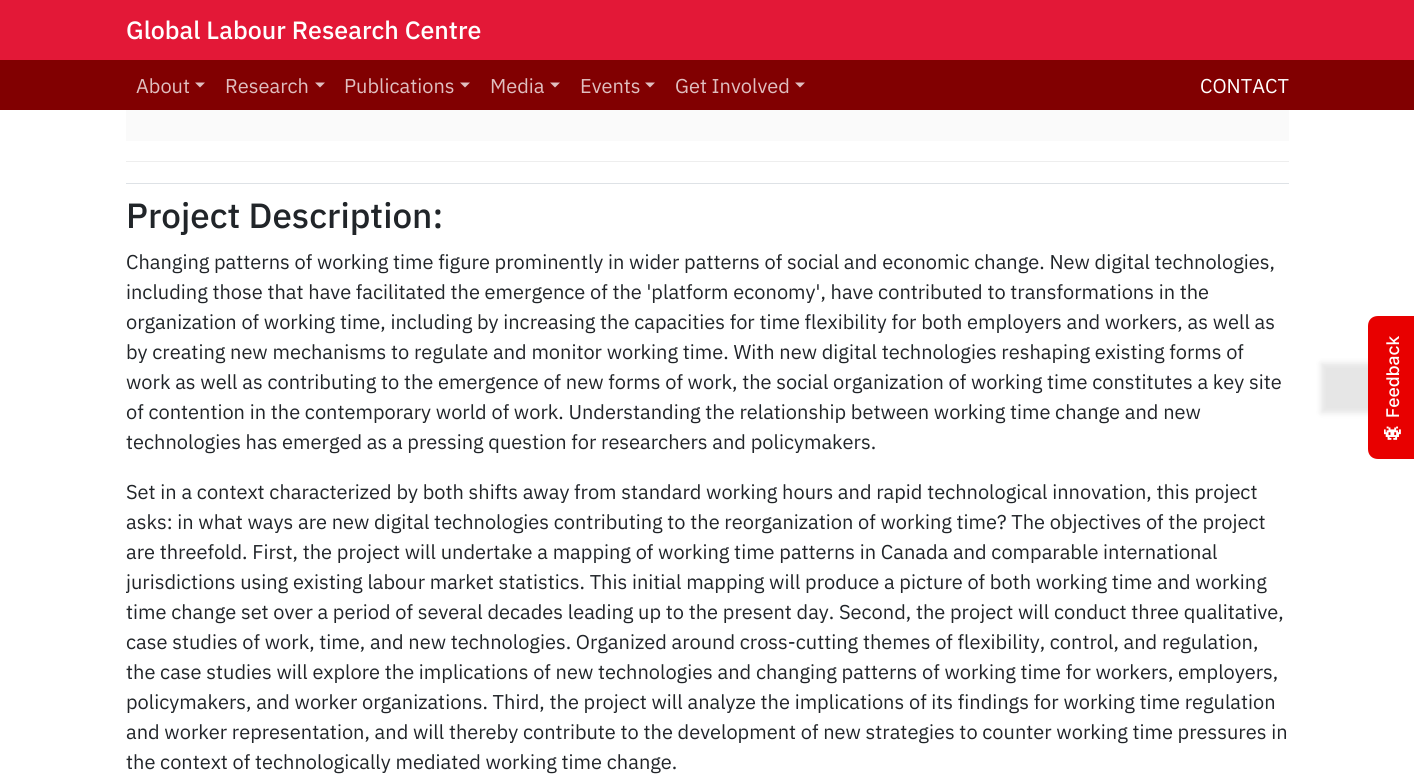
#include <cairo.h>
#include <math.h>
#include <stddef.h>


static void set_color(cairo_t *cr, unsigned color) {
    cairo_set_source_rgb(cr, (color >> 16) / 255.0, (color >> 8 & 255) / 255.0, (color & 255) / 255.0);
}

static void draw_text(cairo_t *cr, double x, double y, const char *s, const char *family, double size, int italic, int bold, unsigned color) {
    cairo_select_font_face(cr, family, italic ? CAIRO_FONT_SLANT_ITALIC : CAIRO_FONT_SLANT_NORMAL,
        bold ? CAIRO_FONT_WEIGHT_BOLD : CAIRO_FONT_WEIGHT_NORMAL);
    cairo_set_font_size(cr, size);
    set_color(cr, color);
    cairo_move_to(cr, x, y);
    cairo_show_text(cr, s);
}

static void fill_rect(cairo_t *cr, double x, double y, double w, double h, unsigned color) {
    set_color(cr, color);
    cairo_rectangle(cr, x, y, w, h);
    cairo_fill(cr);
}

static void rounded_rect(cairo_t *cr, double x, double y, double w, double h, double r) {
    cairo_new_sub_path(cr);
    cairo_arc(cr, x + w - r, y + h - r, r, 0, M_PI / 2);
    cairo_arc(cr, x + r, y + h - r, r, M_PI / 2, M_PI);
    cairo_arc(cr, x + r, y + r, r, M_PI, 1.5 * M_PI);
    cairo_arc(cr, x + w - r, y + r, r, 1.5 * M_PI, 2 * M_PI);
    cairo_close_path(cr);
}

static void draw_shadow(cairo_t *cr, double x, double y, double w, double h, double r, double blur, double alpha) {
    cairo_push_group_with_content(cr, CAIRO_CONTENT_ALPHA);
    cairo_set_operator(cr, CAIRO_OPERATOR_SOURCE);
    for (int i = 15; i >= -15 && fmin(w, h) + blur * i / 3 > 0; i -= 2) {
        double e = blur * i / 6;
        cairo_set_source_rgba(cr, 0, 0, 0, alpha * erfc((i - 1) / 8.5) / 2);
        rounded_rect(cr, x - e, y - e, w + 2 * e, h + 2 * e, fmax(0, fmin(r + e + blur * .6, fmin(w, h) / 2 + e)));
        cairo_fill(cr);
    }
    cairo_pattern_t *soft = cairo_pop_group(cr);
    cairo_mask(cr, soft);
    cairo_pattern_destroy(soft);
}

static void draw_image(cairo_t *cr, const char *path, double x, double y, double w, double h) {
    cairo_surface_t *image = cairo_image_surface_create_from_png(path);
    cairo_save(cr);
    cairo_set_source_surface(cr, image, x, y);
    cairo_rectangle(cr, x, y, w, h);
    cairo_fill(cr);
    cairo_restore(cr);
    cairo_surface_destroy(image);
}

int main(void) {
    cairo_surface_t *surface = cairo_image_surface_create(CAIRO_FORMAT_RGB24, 1414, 774);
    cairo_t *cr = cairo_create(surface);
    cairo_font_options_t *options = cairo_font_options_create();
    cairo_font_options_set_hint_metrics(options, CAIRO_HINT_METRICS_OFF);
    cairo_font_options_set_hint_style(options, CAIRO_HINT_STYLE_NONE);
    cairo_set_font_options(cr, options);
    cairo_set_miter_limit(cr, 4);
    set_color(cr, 0xFFFFFF);
    cairo_paint(cr);
    fill_rect(cr, 0, 0, 1414, 60, 0xE31837);
    draw_text(cr, 126, 39, "Global Labour Research Centre", "IBM Plex Sans Medium", 25, 0, 0, 0xFFFFFF);
    fill_rect(cr, 0, 60, 1414, 50, 0x810001);
    draw_text(cr, 136, 93, "About", "IBM Plex Sans", 20, 0, 0, 0xE0BFC0);
    cairo_new_path(cr);
    cairo_move_to(cr, 195, 82.5);
    cairo_line_to(cr, 205, 82.5);
    cairo_line_to(cr, 200, 87.5);
    cairo_close_path(cr);
    cairo_fill(cr);
    draw_text(cr, 225, 93, "Research", "IBM Plex Sans", 20, 0, 0, 0xE0BFC0);
    cairo_new_path(cr);
    cairo_move_to(cr, 315, 82.5);
    cairo_line_to(cr, 325, 82.5);
    cairo_line_to(cr, 320, 87.5);
    cairo_close_path(cr);
    cairo_fill(cr);
    draw_text(cr, 344, 93, "Publications", "IBM Plex Sans", 20, 0, 0, 0xE0BFC0);
    cairo_new_path(cr);
    cairo_move_to(cr, 460, 82.5);
    cairo_line_to(cr, 470, 82.5);
    cairo_line_to(cr, 465, 87.5);
    cairo_close_path(cr);
    cairo_fill(cr);
    draw_text(cr, 490, 93, "Media", "IBM Plex Sans", 20, 0, 0, 0xE0BFC0);
    cairo_new_path(cr);
    cairo_move_to(cr, 550, 82.5);
    cairo_line_to(cr, 560, 82.5);
    cairo_line_to(cr, 555, 87.5);
    cairo_close_path(cr);
    cairo_fill(cr);
    draw_text(cr, 580, 93, "Events", "IBM Plex Sans", 20, 0, 0, 0xE0BFC0);
    cairo_new_path(cr);
    cairo_move_to(cr, 645, 82.5);
    cairo_line_to(cr, 655, 82.5);
    cairo_line_to(cr, 650, 87.5);
    cairo_close_path(cr);
    cairo_fill(cr);
    draw_text(cr, 675, 93, "Get Involved", "IBM Plex Sans", 20, 0, 0, 0xE0BFC0);
    cairo_new_path(cr);
    cairo_move_to(cr, 795, 82.5);
    cairo_line_to(cr, 805, 82.5);
    cairo_line_to(cr, 800, 87.5);
    cairo_close_path(cr);
    cairo_fill(cr);
    draw_text(cr, 1200, 93, "CONTACT", "IBM Plex Sans", 20, 0, 0, 0xFFFFFF);
    fill_rect(cr, 126, 110, 1163, 31, 0xFAFAFA);
    fill_rect(cr, 126, 161, 1163, 1, 0xEEEEEE);
    fill_rect(cr, 126, 183, 1163, 1, 0xDEE2E6);
    draw_text(cr, 126, 228, "Project Description:", "IBM Plex Sans Medium", 35, 0, 0, 0x212529);
    draw_text(cr, 126, 269, "Changing patterns of working time figure prominently in wider patterns of social and economic change. New digital technologies,", "IBM Plex Sans", 20, 0, 0, 0x212529);
    draw_text(cr, 126, 299, "including those that have facilitated the emergence of the 'platform economy', have contributed to transformations in the", "IBM Plex Sans", 20, 0, 0, 0x212529);
    draw_text(cr, 126, 329, "organization of working time, including by increasing the capacities for time flexibility for both employers and workers, as well as", "IBM Plex Sans", 20, 0, 0, 0x212529);
    draw_text(cr, 126, 359, "by creating new mechanisms to regulate and monitor working time. With new digital technologies reshaping existing forms of", "IBM Plex Sans", 20, 0, 0, 0x212529);
    draw_text(cr, 126, 389, "work as well as contributing to the emergence of new forms of work, the social organization of working time constitutes a key site", "IBM Plex Sans", 20, 0, 0, 0x212529);
    draw_text(cr, 126, 419, "of contention in the contemporary world of work. Understanding the relationship between working time change and new", "IBM Plex Sans", 20, 0, 0, 0x212529);
    draw_text(cr, 126, 449, "technologies has emerged as a pressing question for researchers and policymakers.", "IBM Plex Sans", 20, 0, 0, 0x212529);
    draw_text(cr, 126, 499, "Set in a context characterized by both shifts away from standard working hours and rapid technological innovation, this project", "IBM Plex Sans", 20, 0, 0, 0x212529);
    draw_text(cr, 126, 529, "asks: in what ways are new digital technologies contributing to the reorganization of working time? The objectives of the project", "IBM Plex Sans", 20, 0, 0, 0x212529);
    draw_text(cr, 126, 559, "are threefold. First, the project will undertake a mapping of working time patterns in Canada and comparable international", "IBM Plex Sans", 20, 0, 0, 0x212529);
    draw_text(cr, 126, 589, "jurisdictions using existing labour market statistics. This initial mapping will produce a picture of both working time and working", "IBM Plex Sans", 20, 0, 0, 0x212529);
    draw_text(cr, 126, 619, "time change set over a period of several decades leading up to the present day. Second, the project will conduct three qualitative,", "IBM Plex Sans", 20, 0, 0, 0x212529);
    draw_text(cr, 126, 649, "case studies of work, time, and new technologies. Organized around cross-cutting themes of flexibility, control, and regulation,", "IBM Plex Sans", 20, 0, 0, 0x212529);
    draw_text(cr, 126, 679, "the case studies will explore the implications of new technologies and changing patterns of working time for workers, employers,", "IBM Plex Sans", 20, 0, 0, 0x212529);
    draw_text(cr, 126, 709, "policymakers, and worker organizations. Third, the project will analyze the implications of its findings for working time regulation", "IBM Plex Sans", 20, 0, 0, 0x212529);
    draw_text(cr, 126, 739, "and worker representation, and will thereby contribute to the development of new strategies to counter working time pressures in", "IBM Plex Sans", 20, 0, 0, 0x212529);
    draw_text(cr, 126, 769, "the context of technologically mediated working time change.", "IBM Plex Sans", 20, 0, 0, 0x212529);
    set_color(cr, 0x000000);
    draw_shadow(cr, 1321, 363, 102, 50, 0, 3, 0.1);
    set_color(cr, 0xE80000);
    cairo_new_path(cr);
    cairo_move_to(cr, 1368, 449);
    cairo_line_to(cr, 1368, 326);
    cairo_curve_to(cr, 1368, 320, 1372, 316, 1378, 316);
    cairo_line_to(cr, 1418, 316);
    cairo_line_to(cr, 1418, 459);
    cairo_line_to(cr, 1378, 459);
    cairo_curve_to(cr, 1372, 459, 1368, 455, 1368, 449);
    cairo_close_path(cr);
    cairo_fill(cr);
    cairo_save(cr);
    cairo_translate(cr, 1399, 418);
    cairo_rotate(cr, -90 * M_PI / 180);
    draw_text(cr, 0, 0, "Feedback", "Inter Medium", 17.5, 0, 0, 0xFFFFFF);
    cairo_restore(cr);
    draw_image(cr, "assets/img1.png", 1384, 426, 17, 14);
    cairo_surface_write_to_png(surface, "output.png");
    cairo_font_options_destroy(options);
    cairo_destroy(cr);
    cairo_surface_destroy(surface);
    return 0;
}
